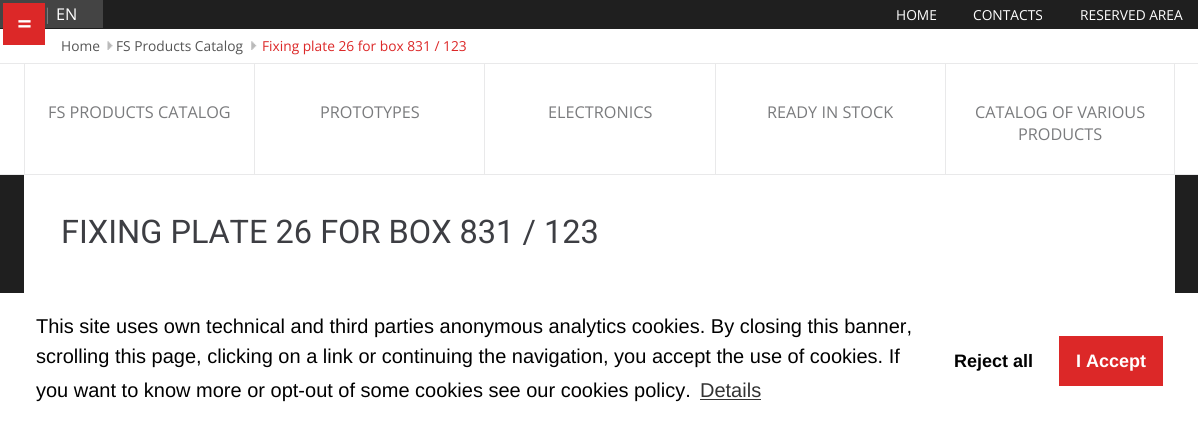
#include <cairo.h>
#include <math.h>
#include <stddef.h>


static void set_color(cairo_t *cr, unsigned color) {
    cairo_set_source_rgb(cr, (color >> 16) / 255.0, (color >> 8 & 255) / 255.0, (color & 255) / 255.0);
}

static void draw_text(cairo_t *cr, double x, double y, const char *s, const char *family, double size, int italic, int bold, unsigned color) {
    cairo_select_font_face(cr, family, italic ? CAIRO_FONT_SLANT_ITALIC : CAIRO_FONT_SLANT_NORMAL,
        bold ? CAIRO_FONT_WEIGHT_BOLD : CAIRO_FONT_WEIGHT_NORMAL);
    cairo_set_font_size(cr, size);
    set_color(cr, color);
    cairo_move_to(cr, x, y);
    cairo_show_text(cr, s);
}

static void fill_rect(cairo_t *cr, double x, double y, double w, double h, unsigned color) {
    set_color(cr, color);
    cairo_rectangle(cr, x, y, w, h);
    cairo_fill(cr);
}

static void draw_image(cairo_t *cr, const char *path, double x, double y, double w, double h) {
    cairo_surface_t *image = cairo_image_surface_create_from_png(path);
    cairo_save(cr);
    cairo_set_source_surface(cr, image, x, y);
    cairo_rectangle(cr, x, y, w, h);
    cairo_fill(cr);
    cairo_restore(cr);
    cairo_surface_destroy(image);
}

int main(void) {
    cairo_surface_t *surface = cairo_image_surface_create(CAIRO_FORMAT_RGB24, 1198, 430);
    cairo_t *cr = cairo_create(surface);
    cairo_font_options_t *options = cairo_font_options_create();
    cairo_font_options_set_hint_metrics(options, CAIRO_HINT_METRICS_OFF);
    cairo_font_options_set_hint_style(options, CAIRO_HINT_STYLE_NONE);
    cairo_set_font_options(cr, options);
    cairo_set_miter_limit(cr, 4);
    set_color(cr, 0xFFFFFF);
    cairo_paint(cr);
    fill_rect(cr, 0, 0, 1198, 29, 0x1F1F1F);
    fill_rect(cr, 0, 0, 103, 28, 0x444444);
    fill_rect(cr, 3, 3, 42, 42, 0xDC2828);
    draw_text(cr, 17, 33, "=", "Open Sans", 25, 0, 1, 0xFFFFFF);
    draw_text(cr, 43, 20, "|", "Open Sans", 16.25, 0, 0, 0x7A7B7D);
    draw_text(cr, 56, 20, "EN", "Open Sans", 16.25, 0, 0, 0xFFFFFF);
    draw_text(cr, 896, 20, "HOME", "Open Sans", 13.75, 0, 0, 0xFFFFFF);
    draw_text(cr, 973, 20, "CONTACTS", "Open Sans", 13.75, 0, 0, 0xFFFFFF);
    draw_text(cr, 1080, 20, "RESERVED AREA", "Open Sans", 13.75, 0, 0, 0xFFFFFF);
    draw_text(cr, 61, 51, "Home", "Open Sans", 13.75, 0, 0, 0x555555);
    draw_image(cr, "assets/img1.png", 107, 41, 6, 9);
    draw_text(cr, 116, 51, "FS Products Catalog", "Open Sans", 13.75, 0, 0, 0x555555);
    draw_image(cr, "assets/img2.png", 251, 41, 6, 9);
    draw_text(cr, 262, 51, "Fixing plate 26 for box 831 / 123", "Open Sans", 13.75, 0, 0, 0xDC2828);
    fill_rect(cr, 0, 175, 1198, 118, 0x1F1F1F);
    fill_rect(cr, 0, 63, 1198, 1, 0xE9E9EA);
    fill_rect(cr, 0, 174, 1198, 1, 0xE9E9EA);
    fill_rect(cr, 24, 64, 1, 110, 0xE9E9EA);
    draw_text(cr, 48, 118, "FS PRODUCTS CATALOG", "Open Sans", 16.25, 0, 0, 0x7A7B7D);
    fill_rect(cr, 254, 64, 1, 110, 0xE9E9EA);
    draw_text(cr, 320, 118, "PROTOTYPES", "Open Sans", 16.25, 0, 0, 0x7A7B7D);
    fill_rect(cr, 484, 64, 1, 110, 0xE9E9EA);
    draw_text(cr, 548, 118, "ELECTRONICS", "Open Sans", 16.25, 0, 0, 0x7A7B7D);
    fill_rect(cr, 715, 64, 1, 110, 0xE9E9EA);
    draw_text(cr, 767, 118, "READY IN STOCK", "Open Sans", 16.25, 0, 0, 0x7A7B7D);
    fill_rect(cr, 1174, 64, 1, 110, 0xE9E9EA);
    fill_rect(cr, 945, 64, 1, 110, 0xE9E9EA);
    draw_text(cr, 975, 118, "CATALOG OF VARIOUS", "Open Sans", 16.25, 0, 0, 0x7A7B7D);
    draw_text(cr, 1018, 140, "PRODUCTS", "Open Sans", 16.25, 0, 0, 0x7A7B7D);
    fill_rect(cr, 24, 175, 1151, 118, 0xFFFFFF);
    draw_text(cr, 61, 243, "FIXING PLATE 26 FOR BOX 831 / 123", "Roboto", 32.5, 0, 0, 0x3D3E43);
    draw_text(cr, 36, 333, "This site uses own technical and third parties anonymous analytics cookies. By closing this banner,", "Liberation Sans", 20, 0, 0, 0x000000);
    draw_text(cr, 36, 363, "scrolling this page, clicking on a link or continuing the navigation, you accept the use of cookies. If", "Liberation Sans", 20, 0, 0, 0x000000);
    draw_text(cr, 36, 397, "you want to know more or opt-out of some cookies see our cookies policy.", "Liberation Sans", 20, 0, 0, 0x000000);
    draw_text(cr, 700, 397, "Details", "Liberation Sans", 20, 0, 0, 0x333333);
    fill_rect(cr, 700, 399, 61, 1, 0x333333);
    draw_text(cr, 954, 367, "Reject all", "Liberation Sans", 18, 0, 1, 0x000000);
    fill_rect(cr, 1059, 336, 104, 50, 0xDC2828);
    draw_text(cr, 1076, 367, "I Accept", "Liberation Sans", 18, 0, 1, 0xFFFFFF);
    cairo_surface_write_to_png(surface, "output.png");
    cairo_font_options_destroy(options);
    cairo_destroy(cr);
    cairo_surface_destroy(surface);
    return 0;
}
